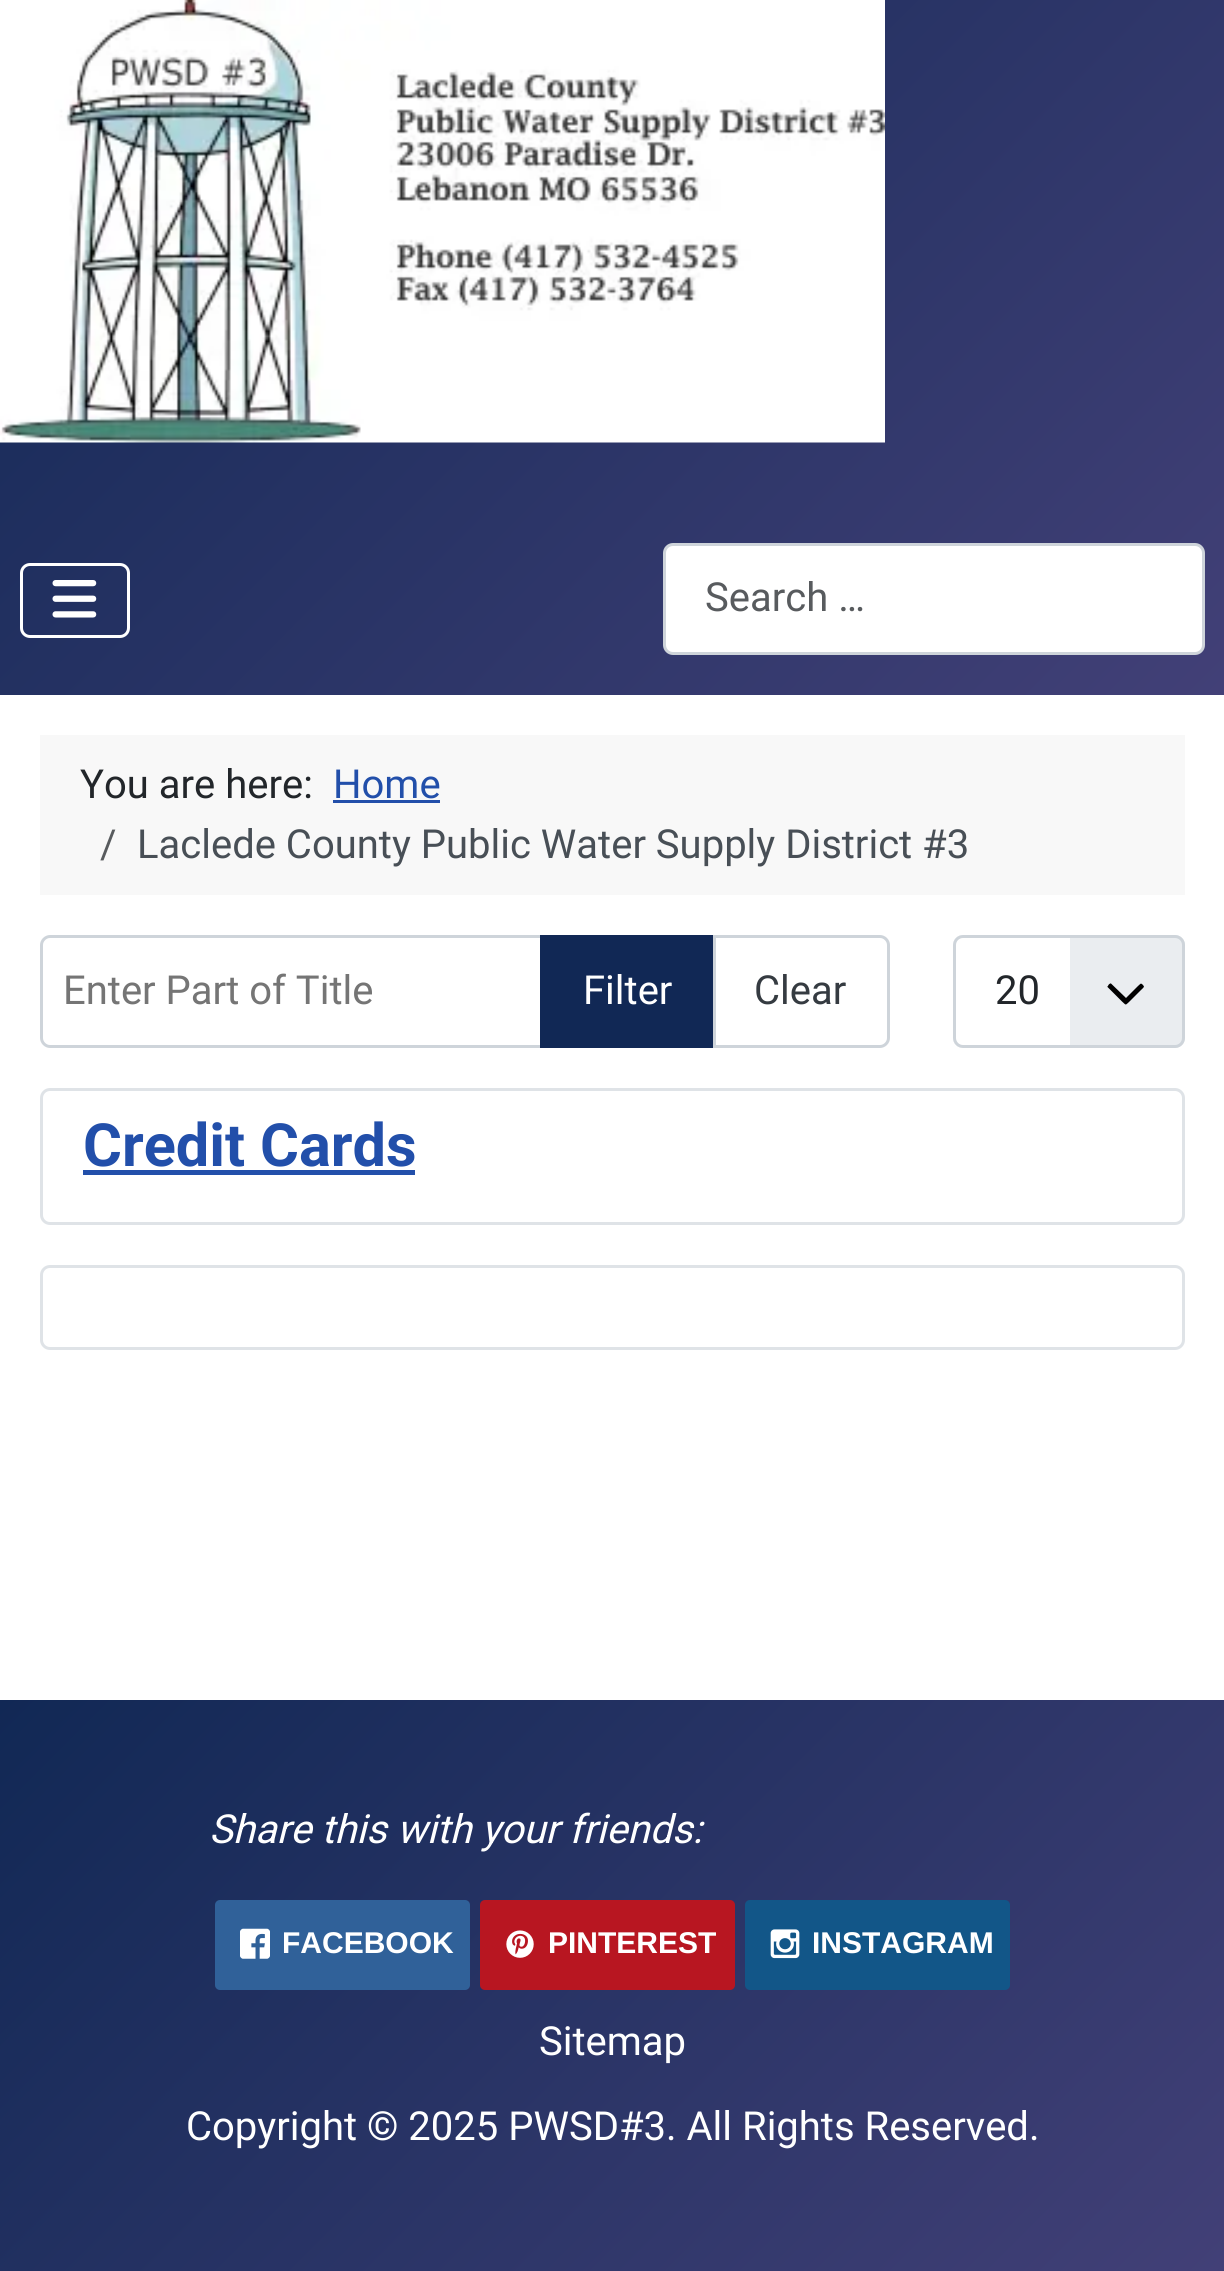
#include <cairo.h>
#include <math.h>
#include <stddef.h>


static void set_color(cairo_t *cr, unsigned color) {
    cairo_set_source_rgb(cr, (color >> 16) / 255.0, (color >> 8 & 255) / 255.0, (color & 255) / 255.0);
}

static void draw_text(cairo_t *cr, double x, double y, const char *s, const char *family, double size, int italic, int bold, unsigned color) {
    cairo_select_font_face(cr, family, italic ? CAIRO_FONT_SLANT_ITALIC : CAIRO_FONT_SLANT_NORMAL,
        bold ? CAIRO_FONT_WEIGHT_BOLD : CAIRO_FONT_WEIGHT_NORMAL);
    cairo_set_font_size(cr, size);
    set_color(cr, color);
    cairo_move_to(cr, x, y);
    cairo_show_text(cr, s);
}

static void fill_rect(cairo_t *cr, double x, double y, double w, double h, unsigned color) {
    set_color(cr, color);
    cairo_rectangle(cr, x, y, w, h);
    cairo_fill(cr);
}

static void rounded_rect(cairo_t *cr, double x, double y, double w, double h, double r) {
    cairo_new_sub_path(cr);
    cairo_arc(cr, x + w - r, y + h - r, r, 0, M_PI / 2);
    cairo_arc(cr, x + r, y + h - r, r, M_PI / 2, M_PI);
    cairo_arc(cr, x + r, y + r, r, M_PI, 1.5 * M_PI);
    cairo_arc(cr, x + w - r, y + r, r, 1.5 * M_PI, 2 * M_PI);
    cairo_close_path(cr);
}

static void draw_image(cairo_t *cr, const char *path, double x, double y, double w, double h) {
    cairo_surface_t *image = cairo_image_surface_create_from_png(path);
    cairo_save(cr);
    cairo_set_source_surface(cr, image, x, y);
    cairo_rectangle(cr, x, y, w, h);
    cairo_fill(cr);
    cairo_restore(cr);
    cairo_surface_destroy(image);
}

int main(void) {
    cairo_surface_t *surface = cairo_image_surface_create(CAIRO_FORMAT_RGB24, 1224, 2271);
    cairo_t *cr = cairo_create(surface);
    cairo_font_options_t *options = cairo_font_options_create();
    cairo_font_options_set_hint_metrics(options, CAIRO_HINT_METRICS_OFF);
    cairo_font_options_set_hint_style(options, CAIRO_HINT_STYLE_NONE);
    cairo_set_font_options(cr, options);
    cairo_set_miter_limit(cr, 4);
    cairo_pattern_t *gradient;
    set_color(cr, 0xFFFFFF);
    cairo_paint(cr);
    gradient = cairo_pattern_create_linear(132, -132, 1093, 828);
    cairo_pattern_add_color_stop_rgba(gradient, 0, 0.067, 0.157, 0.333, 1);
    cairo_pattern_add_color_stop_rgba(gradient, 1, 0.259, 0.251, 0.467, 1);
    cairo_set_source(cr, gradient);
    cairo_pattern_destroy(gradient);
    cairo_rectangle(cr, 0, 0, 1224, 695);
    cairo_fill(cr);
    draw_image(cr, "assets/img1.png", 0, 0, 885, 443);
    rounded_rect(cr, 21.5, 564.5, 107, 72, 8.5);
    set_color(cr, 0xFFFFFF);
    cairo_set_line_width(cr, 3);
    cairo_stroke(cr);
    draw_image(cr, "assets/img2.png", 52, 580, 45, 38);
    rounded_rect(cr, 664.5, 544.5, 539, 109, 8.5);
    cairo_fill_preserve(cr);
    set_color(cr, 0xCED4DA);
    cairo_stroke(cr);
    draw_text(cr, 705, 611, "Search …", "Roboto", 40, 0, 0, 0x585B5E);
    fill_rect(cr, 40, 735, 1145, 160, 0xF8F8F8);
    draw_text(cr, 80, 798, "You are here:", "Roboto", 40, 0, 0, 0x22262A);
    draw_text(cr, 333, 798, "Home", "Roboto", 40, 0, 0, 0x224FAA);
    fill_rect(cr, 333, 800, 107, 3, 0x224FAA);
    draw_text(cr, 100, 858, "/", "Roboto", 40, 0, 0, 0x585B5E);
    draw_text(cr, 137, 858, "Laclede County Public Water Supply District #3", "Roboto", 40, 0, 0, 0x484F56);
    cairo_new_path(cr);
    cairo_move_to(cr, 50, 936.5);
    cairo_line_to(cr, 541.5, 936.5);
    cairo_line_to(cr, 541.5, 1046.5);
    cairo_line_to(cr, 50, 1046.5);
    cairo_curve_to(cr, 45.5, 1046.5, 41.5, 1042.5, 41.5, 1038);
    cairo_line_to(cr, 41.5, 945);
    cairo_curve_to(cr, 41.5, 940.5, 45.5, 936.5, 50, 936.5);
    cairo_close_path(cr);
    set_color(cr, 0xCED4DA);
    cairo_stroke(cr);
    draw_text(cr, 63, 1004, "Enter Part of Title", "Roboto", 40, 0, 0, 0x757575);
    fill_rect(cr, 540, 935, 173, 113, 0x112855);
    draw_text(cr, 583, 1004, "Filter", "Roboto", 40, 0, 0, 0xFFFFFF);
    cairo_new_path(cr);
    cairo_move_to(cr, 714.5, 936.5);
    cairo_line_to(cr, 880, 936.5);
    cairo_curve_to(cr, 884.5, 936.5, 888.5, 940.5, 888.5, 945);
    cairo_line_to(cr, 888.5, 1038);
    cairo_curve_to(cr, 888.5, 1042.5, 884.5, 1046.5, 880, 1046.5);
    cairo_line_to(cr, 714.5, 1046.5);
    cairo_close_path(cr);
    set_color(cr, 0xCED4DA);
    cairo_stroke(cr);
    draw_text(cr, 754, 1004, "Clear", "Roboto", 40, 0, 0, 0x353B41);
    set_color(cr, 0xEAEDF0);
    rounded_rect(cr, 953, 935, 232, 113, 10);
    cairo_fill(cr);
    set_color(cr, 0x000000);
    cairo_new_path(cr);
    cairo_move_to(cr, 1107.5, 987);
    cairo_line_to(cr, 1122, 1001.5);
    cairo_curve_to(cr, 1126.5, 1005.5, 1125, 1005.5, 1129.5, 1001.5);
    cairo_line_to(cr, 1141, 990);
    cairo_curve_to(cr, 1144, 987, 1145, 987, 1142.5, 984.5);
    cairo_curve_to(cr, 1140.5, 982.5, 1140, 984.5, 1138, 986);
    cairo_line_to(cr, 1126, 998);
    cairo_line_to(cr, 1111, 983.5);
    cairo_curve_to(cr, 1110, 983, 1108, 985, 1108, 986);
    cairo_curve_to(cr, 1107, 986.5, 1107.5, 986.5, 1107.5, 987);
    cairo_close_path(cr);
    cairo_fill(cr);
    set_color(cr, 0xFFFFFF);
    cairo_new_path(cr);
    cairo_move_to(cr, 963, 935);
    cairo_line_to(cr, 1070, 935);
    cairo_line_to(cr, 1070, 1048);
    cairo_line_to(cr, 963, 1048);
    cairo_curve_to(cr, 957.5, 1048, 953, 1043.5, 953, 1038);
    cairo_line_to(cr, 953, 945);
    cairo_curve_to(cr, 953, 939.5, 957.5, 935, 963, 935);
    cairo_close_path(cr);
    cairo_fill(cr);
    rounded_rect(cr, 954.5, 936.5, 229, 110, 8.5);
    set_color(cr, 0xCED4DA);
    cairo_stroke(cr);
    draw_text(cr, 995, 1004, "20", "Roboto", 40, 0, 0, 0x22262A);
    rounded_rect(cr, 41.5, 1089.5, 1142, 134, 8.5);
    set_color(cr, 0xDFE3E7);
    cairo_stroke(cr);
    draw_text(cr, 83, 1166, "Credit Cards", "Roboto", 59.5, 0, 1, 0x224FAA);
    fill_rect(cr, 83, 1170, 332, 5, 0x224FAA);
    rounded_rect(cr, 41.5, 1266.5, 1142, 82, 8.5);
    set_color(cr, 0xDFE3E7);
    cairo_stroke(cr);
    gradient = cairo_pattern_create_linear(163, 1537, 1062, 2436);
    cairo_pattern_add_color_stop_rgba(gradient, 0, 0.067, 0.157, 0.333, 1);
    cairo_pattern_add_color_stop_rgba(gradient, 1, 0.259, 0.251, 0.467, 1);
    cairo_set_source(cr, gradient);
    cairo_pattern_destroy(gradient);
    cairo_rectangle(cr, 0, 1700, 1224, 571);
    cairo_fill(cr);
    draw_text(cr, 209, 1843, "Share this with your friends:", "Roboto", 40, 1, 0, 0xFFFFFF);
    set_color(cr, 0x306199);
    rounded_rect(cr, 215, 1900, 255, 90, 5);
    cairo_fill(cr);
    draw_image(cr, "assets/img3.png", 240, 1928, 30, 31);
    draw_text(cr, 282, 1953, "FACEBOOK", "Liberation Sans", 30, 0, 1, 0xFFFFFF);
    set_color(cr, 0xB81621);
    rounded_rect(cr, 480, 1900, 255, 90, 5);
    cairo_fill(cr);
    draw_image(cr, "assets/img4.png", 506, 1930, 28, 28);
    draw_text(cr, 548, 1953, "PINTEREST", "Liberation Sans", 30, 0, 1, 0xFFFFFF);
    set_color(cr, 0x125688);
    rounded_rect(cr, 745, 1900, 265, 90, 5);
    cairo_fill(cr);
    draw_image(cr, "assets/img5.png", 770, 1929, 30, 30);
    draw_text(cr, 812, 1953, "INSTAGRAM", "Liberation Sans", 30, 0, 1, 0xFFFFFF);
    draw_text(cr, 539, 2055, "Sitemap", "Roboto", 40, 0, 0, 0xFFFFFF);
    draw_text(cr, 186, 2140, "Copyright © 2025 PWSD#3. All Rights Reserved.", "Roboto", 40, 0, 0, 0xFFFFFF);
    cairo_surface_write_to_png(surface, "output.png");
    cairo_font_options_destroy(options);
    cairo_destroy(cr);
    cairo_surface_destroy(surface);
    return 0;
}
